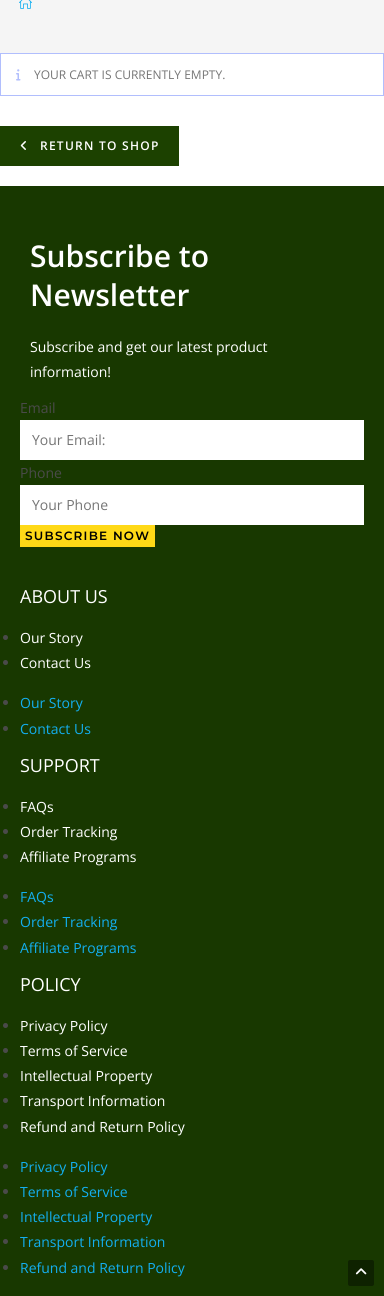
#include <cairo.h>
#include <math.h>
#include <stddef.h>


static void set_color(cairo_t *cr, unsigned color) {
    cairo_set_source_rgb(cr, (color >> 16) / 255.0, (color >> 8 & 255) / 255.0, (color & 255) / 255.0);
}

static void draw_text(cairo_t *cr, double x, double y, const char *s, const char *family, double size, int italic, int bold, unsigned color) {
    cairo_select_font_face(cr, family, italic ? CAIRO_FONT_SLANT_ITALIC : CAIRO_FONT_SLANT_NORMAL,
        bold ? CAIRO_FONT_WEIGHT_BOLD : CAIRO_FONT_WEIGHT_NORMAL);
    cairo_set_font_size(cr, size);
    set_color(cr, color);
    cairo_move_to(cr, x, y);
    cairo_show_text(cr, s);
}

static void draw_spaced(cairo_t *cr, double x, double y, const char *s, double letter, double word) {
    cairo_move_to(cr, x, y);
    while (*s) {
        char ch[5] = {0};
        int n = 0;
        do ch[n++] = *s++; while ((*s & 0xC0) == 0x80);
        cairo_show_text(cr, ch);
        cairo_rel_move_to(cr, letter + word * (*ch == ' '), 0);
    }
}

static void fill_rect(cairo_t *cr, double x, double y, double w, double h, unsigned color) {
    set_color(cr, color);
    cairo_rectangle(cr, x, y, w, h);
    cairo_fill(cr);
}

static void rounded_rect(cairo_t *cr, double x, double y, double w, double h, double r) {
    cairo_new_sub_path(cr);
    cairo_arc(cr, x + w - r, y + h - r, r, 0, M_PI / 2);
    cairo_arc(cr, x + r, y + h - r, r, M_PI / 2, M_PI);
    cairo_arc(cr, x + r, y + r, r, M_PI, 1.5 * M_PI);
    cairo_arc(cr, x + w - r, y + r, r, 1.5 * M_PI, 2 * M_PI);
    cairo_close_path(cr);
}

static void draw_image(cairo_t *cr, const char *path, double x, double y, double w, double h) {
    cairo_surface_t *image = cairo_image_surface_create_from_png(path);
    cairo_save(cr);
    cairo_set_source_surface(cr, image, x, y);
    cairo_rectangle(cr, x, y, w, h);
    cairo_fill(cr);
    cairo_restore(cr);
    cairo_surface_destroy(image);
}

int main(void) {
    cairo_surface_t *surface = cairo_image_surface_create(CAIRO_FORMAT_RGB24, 384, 1296);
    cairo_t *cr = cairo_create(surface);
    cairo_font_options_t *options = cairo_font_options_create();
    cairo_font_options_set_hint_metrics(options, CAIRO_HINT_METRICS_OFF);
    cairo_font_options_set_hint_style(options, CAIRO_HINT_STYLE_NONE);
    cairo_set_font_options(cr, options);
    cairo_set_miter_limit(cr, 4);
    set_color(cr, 0xFFFFFF);
    cairo_paint(cr);
    fill_rect(cr, 0, 0, 384, 53, 0xF5F5F5);
    draw_image(cr, "assets/img1.png", 19, 0, 13, 9);
    cairo_rectangle(cr, 0.5, 53.5, 383, 42);
    set_color(cr, 0xB1BEFD);
    cairo_set_line_width(cr, 1);
    cairo_stroke(cr);
    draw_image(cr, "assets/img2.png", 16, 69, 5, 12);
    draw_text(cr, 34, 79, "YOUR CART IS CURRENTLY EMPTY.", "Open Sans", 12, 0, 0, 0x757575);
    fill_rect(cr, 0, 126, 179, 40, 0x1C4100);
    draw_image(cr, "assets/img3.png", 20, 141, 6, 9);
    cairo_select_font_face(cr, "Open Sans SemiBold", CAIRO_FONT_SLANT_NORMAL, CAIRO_FONT_WEIGHT_NORMAL);
    set_color(cr, 0xFFFFFF);
    draw_spaced(cr, 40, 150, "RETURN TO SHOP", 1.25, 0);
    fill_rect(cr, 0, 186, 384, 1110, 0x183800);
    draw_text(cr, 30, 267, "Subscribe to", "Open Sans SemiBold", 30, 0, 0, 0xFFFFFF);
    draw_text(cr, 30, 306, "Newsletter", "Open Sans SemiBold", 30, 0, 0, 0xFFFFFF);
    draw_text(cr, 30, 352, "Subscribe and get our latest product", "Open Sans", 14, 0, 0, 0xFFFFFF);
    draw_text(cr, 30, 377, "information!", "Open Sans", 14, 0, 0, 0xFFFFFF);
    draw_text(cr, 20, 413, "Email", "Open Sans", 14, 0, 0, 0x4A4A4A);
    fill_rect(cr, 20, 420, 344, 40, 0xFFFFFF);
    draw_text(cr, 32, 445, "Your Email:", "Open Sans", 14, 0, 0, 0x757575);
    draw_text(cr, 20, 478, "Phone", "Open Sans", 14, 0, 0, 0x4A4A4A);
    fill_rect(cr, 20, 485, 344, 40, 0xFFFFFF);
    draw_text(cr, 32, 510, "Your Phone", "Open Sans", 14, 0, 0, 0x757575);
    fill_rect(cr, 20, 525, 135, 22, 0xFFD917);
    cairo_select_font_face(cr, "Montserrat SemiBold", CAIRO_FONT_SLANT_NORMAL, CAIRO_FONT_WEIGHT_NORMAL);
    cairo_set_font_size(cr, 12);
    set_color(cr, 0x000000);
    draw_spaced(cr, 25, 540, "SUBSCRIBE NOW", 1.25, 0);
    draw_text(cr, 20, 603, "ABOUT US", "Open Sans", 18, 0, 0, 0xFFFFFF);
    set_color(cr, 0x4A4A4A);
    cairo_new_path(cr);
    cairo_arc(cr, 5.5, 637.5, 2.5, 0, 2 * M_PI);
    cairo_fill(cr);
    draw_text(cr, 20, 643, "Our Story", "Open Sans", 14, 0, 0, 0xFFFFFF);
    set_color(cr, 0x4A4A4A);
    cairo_new_path(cr);
    cairo_arc(cr, 5.5, 662.5, 2.5, 0, 2 * M_PI);
    cairo_fill(cr);
    draw_text(cr, 20, 668, "Contact Us", "Open Sans", 14, 0, 0, 0xFFFFFF);
    set_color(cr, 0x4A4A4A);
    cairo_new_path(cr);
    cairo_arc(cr, 5.5, 702.5, 2.5, 0, 2 * M_PI);
    cairo_fill(cr);
    draw_text(cr, 20, 708, "Our Story", "Open Sans", 14, 0, 0, 0x13AFF0);
    set_color(cr, 0x4A4A4A);
    cairo_new_path(cr);
    cairo_arc(cr, 5.5, 728.5, 2.5, 0, 2 * M_PI);
    cairo_fill(cr);
    draw_text(cr, 20, 734, "Contact Us", "Open Sans", 14, 0, 0, 0x13AFF0);
    draw_text(cr, 20, 772, "SUPPORT", "Open Sans", 18, 0, 0, 0xFFFFFF);
    set_color(cr, 0x4A4A4A);
    cairo_new_path(cr);
    cairo_arc(cr, 5.5, 806.5, 2.5, 0, 2 * M_PI);
    cairo_fill(cr);
    draw_text(cr, 20, 812, "FAQs", "Open Sans", 14, 0, 0, 0xFFFFFF);
    set_color(cr, 0x4A4A4A);
    cairo_new_path(cr);
    cairo_arc(cr, 5.5, 831.5, 2.5, 0, 2 * M_PI);
    cairo_fill(cr);
    draw_text(cr, 20, 837, "Order Tracking", "Open Sans", 14, 0, 0, 0xFFFFFF);
    set_color(cr, 0x4A4A4A);
    cairo_new_path(cr);
    cairo_arc(cr, 5.5, 856.5, 2.5, 0, 2 * M_PI);
    cairo_fill(cr);
    draw_text(cr, 20, 862, "Affiliate Programs", "Open Sans", 14, 0, 0, 0xFFFFFF);
    set_color(cr, 0x4A4A4A);
    cairo_new_path(cr);
    cairo_arc(cr, 5.5, 896.5, 2.5, 0, 2 * M_PI);
    cairo_fill(cr);
    draw_text(cr, 20, 902, "FAQs", "Open Sans", 14, 0, 0, 0x13AFF0);
    set_color(cr, 0x4A4A4A);
    cairo_new_path(cr);
    cairo_arc(cr, 5.5, 921.5, 2.5, 0, 2 * M_PI);
    cairo_fill(cr);
    draw_text(cr, 20, 927, "Order Tracking", "Open Sans", 14, 0, 0, 0x13AFF0);
    set_color(cr, 0x4A4A4A);
    cairo_new_path(cr);
    cairo_arc(cr, 5.5, 947.5, 2.5, 0, 2 * M_PI);
    cairo_fill(cr);
    draw_text(cr, 20, 953, "Affiliate Programs", "Open Sans", 14, 0, 0, 0x13AFF0);
    draw_text(cr, 20, 991, "POLICY", "Open Sans", 18, 0, 0, 0xFFFFFF);
    set_color(cr, 0x4A4A4A);
    cairo_new_path(cr);
    cairo_arc(cr, 5.5, 1025.5, 2.5, 0, 2 * M_PI);
    cairo_fill(cr);
    draw_text(cr, 20, 1031, "Privacy Policy", "Open Sans", 14, 0, 0, 0xFFFFFF);
    set_color(cr, 0x4A4A4A);
    cairo_new_path(cr);
    cairo_arc(cr, 5.5, 1050.5, 2.5, 0, 2 * M_PI);
    cairo_fill(cr);
    draw_text(cr, 20, 1056, "Terms of Service", "Open Sans", 14, 0, 0, 0xFFFFFF);
    set_color(cr, 0x4A4A4A);
    cairo_new_path(cr);
    cairo_arc(cr, 5.5, 1075.5, 2.5, 0, 2 * M_PI);
    cairo_fill(cr);
    draw_text(cr, 20, 1081, "Intellectual Property", "Open Sans", 14, 0, 0, 0xFFFFFF);
    set_color(cr, 0x4A4A4A);
    cairo_new_path(cr);
    cairo_arc(cr, 5.5, 1100.5, 2.5, 0, 2 * M_PI);
    cairo_fill(cr);
    draw_text(cr, 20, 1106, "Transport Information", "Open Sans", 14, 0, 0, 0xFFFFFF);
    set_color(cr, 0x4A4A4A);
    cairo_new_path(cr);
    cairo_arc(cr, 5.5, 1126.5, 2.5, 0, 2 * M_PI);
    cairo_fill(cr);
    draw_text(cr, 20, 1132, "Refund and Return Policy", "Open Sans", 14, 0, 0, 0xFFFFFF);
    set_color(cr, 0x4A4A4A);
    cairo_new_path(cr);
    cairo_arc(cr, 5.5, 1166.5, 2.5, 0, 2 * M_PI);
    cairo_fill(cr);
    draw_text(cr, 20, 1172, "Privacy Policy", "Open Sans", 14, 0, 0, 0x13AFF0);
    set_color(cr, 0x4A4A4A);
    cairo_new_path(cr);
    cairo_arc(cr, 5.5, 1191.5, 2.5, 0, 2 * M_PI);
    cairo_fill(cr);
    draw_text(cr, 20, 1197, "Terms of Service", "Open Sans", 14, 0, 0, 0x13AFF0);
    set_color(cr, 0x4A4A4A);
    cairo_new_path(cr);
    cairo_arc(cr, 5.5, 1216.5, 2.5, 0, 2 * M_PI);
    cairo_fill(cr);
    draw_text(cr, 20, 1222, "Intellectual Property", "Open Sans", 14, 0, 0, 0x13AFF0);
    set_color(cr, 0x4A4A4A);
    cairo_new_path(cr);
    cairo_arc(cr, 5.5, 1241.5, 2.5, 0, 2 * M_PI);
    cairo_fill(cr);
    draw_text(cr, 20, 1247, "Transport Information", "Open Sans", 14, 0, 0, 0x13AFF0);
    set_color(cr, 0x4A4A4A);
    cairo_new_path(cr);
    cairo_arc(cr, 5.5, 1267.5, 2.5, 0, 2 * M_PI);
    cairo_fill(cr);
    draw_text(cr, 20, 1273, "Refund and Return Policy", "Open Sans", 14, 0, 0, 0x13AFF0);
    set_color(cr, 0x0E2200);
    rounded_rect(cr, 348, 1260, 26, 26, 2);
    cairo_fill(cr);
    draw_image(cr, "assets/img4.png", 355, 1268, 12, 7);
    cairo_surface_write_to_png(surface, "output.png");
    cairo_font_options_destroy(options);
    cairo_destroy(cr);
    cairo_surface_destroy(surface);
    return 0;
}
